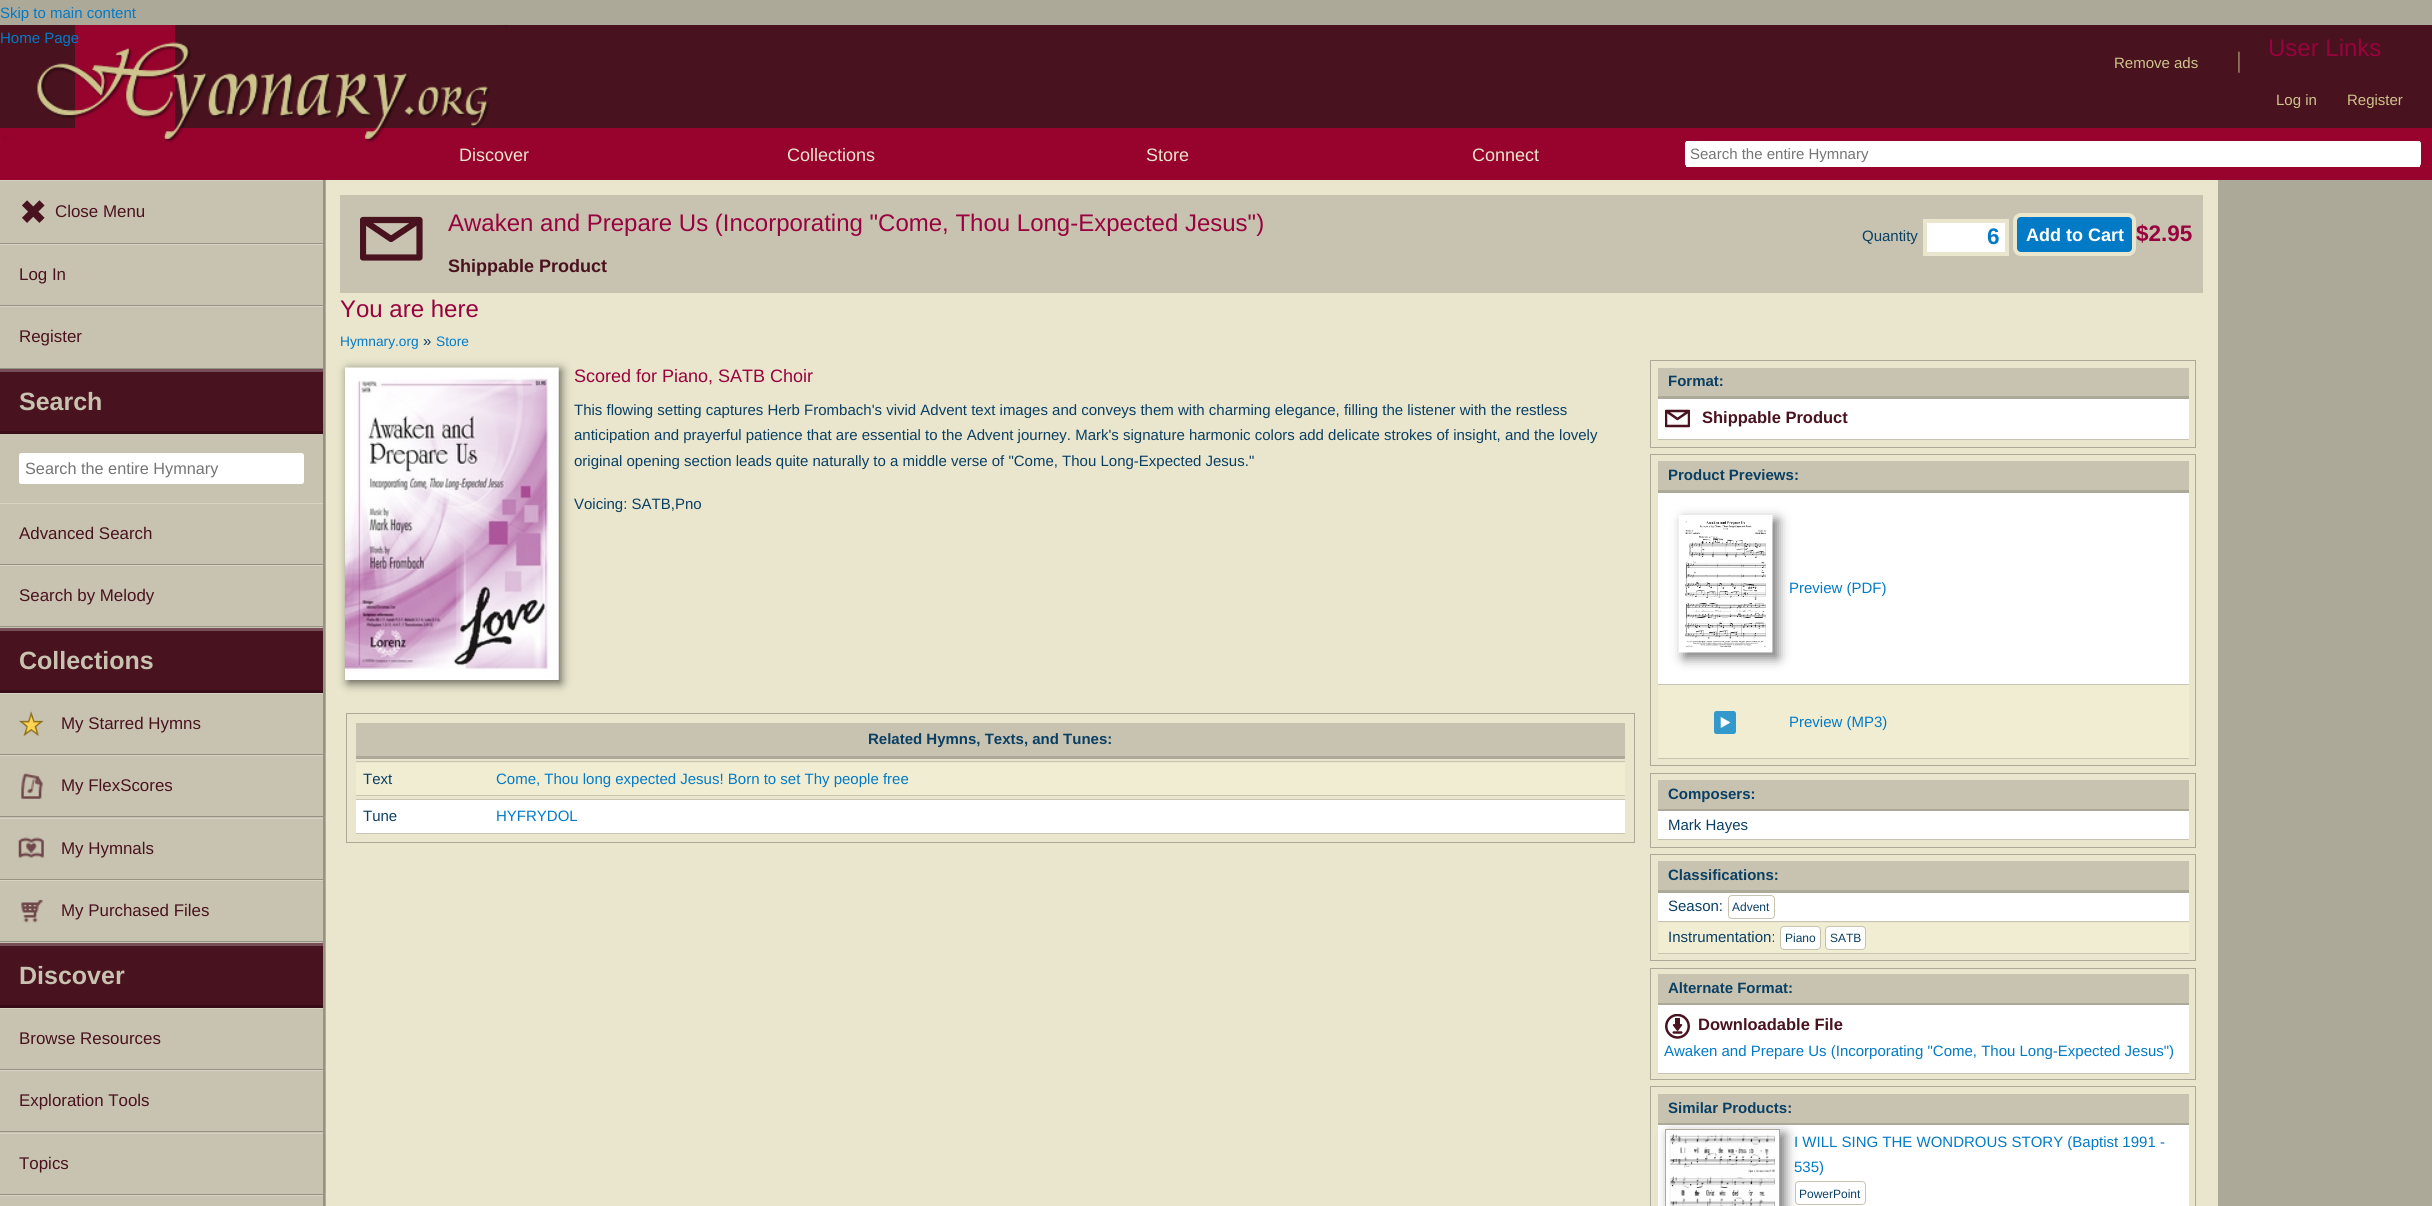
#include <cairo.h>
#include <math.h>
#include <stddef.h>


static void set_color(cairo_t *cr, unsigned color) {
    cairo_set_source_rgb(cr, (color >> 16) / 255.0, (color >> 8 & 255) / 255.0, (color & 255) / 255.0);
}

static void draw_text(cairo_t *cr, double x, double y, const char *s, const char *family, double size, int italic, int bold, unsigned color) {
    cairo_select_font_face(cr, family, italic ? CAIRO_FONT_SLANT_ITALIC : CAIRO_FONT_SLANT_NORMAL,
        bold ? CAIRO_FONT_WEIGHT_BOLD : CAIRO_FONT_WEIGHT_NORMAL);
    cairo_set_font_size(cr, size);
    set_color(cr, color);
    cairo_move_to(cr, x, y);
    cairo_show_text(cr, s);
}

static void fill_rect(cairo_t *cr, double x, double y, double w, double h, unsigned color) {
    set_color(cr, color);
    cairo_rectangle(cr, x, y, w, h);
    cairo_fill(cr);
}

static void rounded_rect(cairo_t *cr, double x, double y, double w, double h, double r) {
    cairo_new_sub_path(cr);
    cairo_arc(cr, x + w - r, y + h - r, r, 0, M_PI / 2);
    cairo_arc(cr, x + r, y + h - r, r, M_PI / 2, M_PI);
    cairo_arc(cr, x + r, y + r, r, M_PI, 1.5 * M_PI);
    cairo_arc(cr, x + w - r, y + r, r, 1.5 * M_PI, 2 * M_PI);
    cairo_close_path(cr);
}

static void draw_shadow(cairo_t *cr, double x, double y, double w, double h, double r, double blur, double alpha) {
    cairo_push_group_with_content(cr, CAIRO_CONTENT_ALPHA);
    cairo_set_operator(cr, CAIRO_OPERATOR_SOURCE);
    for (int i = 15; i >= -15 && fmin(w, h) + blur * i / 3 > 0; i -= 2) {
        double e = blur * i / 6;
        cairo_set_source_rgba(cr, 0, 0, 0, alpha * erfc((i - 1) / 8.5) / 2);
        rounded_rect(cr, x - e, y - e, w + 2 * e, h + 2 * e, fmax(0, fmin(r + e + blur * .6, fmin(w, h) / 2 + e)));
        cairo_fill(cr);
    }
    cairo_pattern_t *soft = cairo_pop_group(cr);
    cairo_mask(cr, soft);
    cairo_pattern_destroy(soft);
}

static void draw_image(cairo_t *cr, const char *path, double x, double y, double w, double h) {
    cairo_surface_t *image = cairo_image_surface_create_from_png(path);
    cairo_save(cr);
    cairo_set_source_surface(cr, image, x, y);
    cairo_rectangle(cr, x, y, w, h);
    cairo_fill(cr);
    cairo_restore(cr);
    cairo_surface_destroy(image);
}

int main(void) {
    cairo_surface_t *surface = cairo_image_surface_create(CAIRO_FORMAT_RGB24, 2432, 1206);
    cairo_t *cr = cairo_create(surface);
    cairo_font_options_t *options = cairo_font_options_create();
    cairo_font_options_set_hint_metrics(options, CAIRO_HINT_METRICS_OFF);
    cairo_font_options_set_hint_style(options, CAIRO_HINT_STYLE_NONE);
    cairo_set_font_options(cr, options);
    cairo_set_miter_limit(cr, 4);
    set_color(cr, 0xADA999);
    cairo_paint(cr);
    draw_text(cr, 0, 18, "Skip to main content", "Liberation Sans", 15, 0, 0, 0x027AC6);
    fill_rect(cr, 0, 25, 2432, 103, 0x49121F);
    fill_rect(cr, 75, 25, 100, 103, 0x98032E);
    fill_rect(cr, 0, 128, 2432, 52, 0x98032E);
    draw_image(cr, "assets/img1.png", 2, 25, 506, 118);
    draw_text(cr, 0, 43, "Home Page", "Liberation Sans", 15, 0, 0, 0x027AC6);
    draw_text(cr, 2114, 68, "Remove ads", "Liberation Sans", 15, 0, 0, 0xCEC48D);
    draw_text(cr, 2236, 68, "|", "Liberation Sans", 22.5, 0, 0, 0x907159);
    draw_text(cr, 2268, 56, "User Links", "Liberation Sans", 24, 0, 0, 0x98023E);
    draw_text(cr, 2276, 105, "Log in", "Liberation Sans", 15, 0, 0, 0xCEC48D);
    draw_text(cr, 2347, 105, "Register", "Liberation Sans", 15, 0, 0, 0xCEC48D);
    draw_text(cr, 459, 161, "Discover", "Liberation Sans", 18, 0, 0, 0xE9E6CD);
    draw_text(cr, 787, 161, "Collections", "Liberation Sans", 18, 0, 0, 0xE9E6CD);
    draw_text(cr, 1146, 161, "Store", "Liberation Sans", 18, 0, 0, 0xE9E6CD);
    draw_text(cr, 1472, 161, "Connect", "Liberation Sans", 18, 0, 0, 0xE9E6CD);
    set_color(cr, 0xFFFFFF);
    rounded_rect(cr, 1685, 141, 736, 25, 2.5);
    cairo_fill(cr);
    fill_rect(cr, 1686, 141, 734, 1, 0xFFFFFF);
    fill_rect(cr, 1686, 165, 734, 2, 0xFFFFFF);
    fill_rect(cr, 1685, 143, 1, 22, 0xFFFFFF);
    draw_text(cr, 1690, 159, "Search the entire Hymnary", "Liberation Sans", 15, 0, 0, 0x757575);
    fill_rect(cr, 0, 181, 323, 1025, 0xC8C3B0);
    fill_rect(cr, 323, 180, 2, 1026, 0x969284);
    fill_rect(cr, 0, 180, 323, 1, 0xD6D2C4);
    fill_rect(cr, 0, 243, 323, 1, 0x969284);
    draw_text(cr, 19, 224, "✖", "DejaVu Sans", 34, 0, 0, 0x49121F);
    draw_text(cr, 55, 217, "Close Menu", "Liberation Sans", 16.9, 0, 0, 0x49121F);
    fill_rect(cr, 0, 244, 323, 1, 0xD6D2C4);
    fill_rect(cr, 0, 305, 323, 1, 0x969284);
    draw_text(cr, 19, 280, "Log In", "Liberation Sans", 16.9, 0, 0, 0x49121F);
    fill_rect(cr, 0, 306, 323, 1, 0xD6D2C4);
    fill_rect(cr, 0, 368, 323, 1, 0x969284);
    draw_text(cr, 19, 342, "Register", "Liberation Sans", 16.9, 0, 0, 0x49121F);
    fill_rect(cr, 0, 372, 323, 59, 0x49121F);
    fill_rect(cr, 0, 369, 323, 3, 0x774D57);
    fill_rect(cr, 0, 431, 323, 3, 0x370E17);
    draw_text(cr, 19, 410, "Search", "Liberation Sans", 25, 0, 1, 0xC8C3B0);
    set_color(cr, 0xFFFFFF);
    rounded_rect(cr, 19, 453, 285, 31, 2.5);
    cairo_fill(cr);
    draw_text(cr, 25, 474, "Search the entire Hymnary", "Liberation Sans", 16.25, 0, 0, 0x757575);
    fill_rect(cr, 0, 503, 323, 1, 0xD6D2C4);
    fill_rect(cr, 0, 564, 323, 1, 0x969284);
    draw_text(cr, 19, 539, "Advanced Search", "Liberation Sans", 16.9, 0, 0, 0x49121F);
    fill_rect(cr, 0, 565, 323, 1, 0xD6D2C4);
    fill_rect(cr, 0, 626, 323, 1, 0x969284);
    draw_text(cr, 19, 601, "Search by Melody", "Liberation Sans", 16.9, 0, 0, 0x49121F);
    fill_rect(cr, 0, 631, 323, 59, 0x49121F);
    fill_rect(cr, 0, 628, 323, 3, 0x774D57);
    fill_rect(cr, 0, 690, 323, 3, 0x370E17);
    draw_text(cr, 19, 669, "Collections", "Liberation Sans", 25, 0, 1, 0xC8C3B0);
    fill_rect(cr, 0, 693, 323, 1, 0xD6D2C4);
    fill_rect(cr, 0, 754, 323, 1, 0x969284);
    draw_image(cr, "assets/img2.png", 18, 711, 26, 26);
    draw_text(cr, 61, 729, "My Starred Hymns", "Liberation Sans", 16.9, 0, 0, 0x49121F);
    fill_rect(cr, 0, 755, 323, 1, 0xD6D2C4);
    fill_rect(cr, 0, 816, 323, 1, 0x969284);
    draw_image(cr, "assets/img3.png", 21, 773, 22, 26);
    draw_text(cr, 61, 791, "My FlexScores", "Liberation Sans", 16.9, 0, 0, 0x49121F);
    fill_rect(cr, 0, 818, 323, 1, 0xD6D2C4);
    fill_rect(cr, 0, 879, 323, 1, 0x969284);
    draw_image(cr, "assets/img4.png", 18, 837, 26, 21);
    draw_text(cr, 61, 854, "My Hymnals", "Liberation Sans", 16.9, 0, 0, 0x49121F);
    fill_rect(cr, 0, 880, 323, 1, 0xD6D2C4);
    fill_rect(cr, 0, 941, 323, 1, 0x969284);
    draw_image(cr, "assets/img5.png", 21, 899, 22, 24);
    draw_text(cr, 61, 916, "My Purchased Files", "Liberation Sans", 16.9, 0, 0, 0x49121F);
    fill_rect(cr, 0, 946, 323, 59, 0x49121F);
    fill_rect(cr, 0, 943, 323, 3, 0x774D57);
    fill_rect(cr, 0, 1005, 323, 3, 0x370E17);
    draw_text(cr, 19, 984, "Discover", "Liberation Sans", 25, 0, 1, 0xC8C3B0);
    fill_rect(cr, 0, 1008, 323, 1, 0xD6D2C4);
    fill_rect(cr, 0, 1069, 323, 1, 0x969284);
    draw_text(cr, 19, 1044, "Browse Resources", "Liberation Sans", 16.9, 0, 0, 0x49121F);
    fill_rect(cr, 0, 1070, 323, 1, 0xD6D2C4);
    fill_rect(cr, 0, 1131, 323, 1, 0x969284);
    draw_text(cr, 19, 1106, "Exploration Tools", "Liberation Sans", 16.9, 0, 0, 0x49121F);
    fill_rect(cr, 0, 1133, 323, 1, 0xD6D2C4);
    fill_rect(cr, 0, 1194, 323, 1, 0x969284);
    draw_text(cr, 19, 1169, "Topics", "Liberation Sans", 16.9, 0, 0, 0x49121F);
    fill_rect(cr, 0, 1195, 323, 1, 0xD6D2C4);
    fill_rect(cr, 326, 180, 1892, 1026, 0xE9E6CD);
    fill_rect(cr, 325, 180, 1, 1026, 0xAFAD9A);
    fill_rect(cr, 340, 195, 1863, 98, 0xC8C3B0);
    cairo_save(cr);
    cairo_rectangle(cr, 360, 208, 63, 62);
    cairo_clip(cr);
    cairo_new_path(cr);
    cairo_move_to(cr, 363, 220);
    cairo_line_to(cr, 391, 239);
    cairo_line_to(cr, 419.5, 220);
    cairo_line_to(cr, 419.5, 257.5);
    cairo_line_to(cr, 363, 257.5);
    cairo_line_to(cr, 363, 220);
    cairo_line_to(cr, 419.5, 220);
    set_color(cr, 0x49121F);
    cairo_set_line_width(cr, 6.2);
    cairo_set_line_cap(cr, CAIRO_LINE_CAP_ROUND);
    cairo_set_line_join(cr, CAIRO_LINE_JOIN_ROUND);
    cairo_stroke(cr);
    cairo_restore(cr);
    draw_text(cr, 448, 231, "Awaken and Prepare Us (Incorporating \"Come, Thou Long-Expected Jesus\")", "Liberation Sans", 24, 0, 0, 0x98023E);
    draw_text(cr, 448, 272, "Shippable Product", "Liberation Sans", 18, 0, 1, 0x49121F);
    draw_text(cr, 1862, 241, "Quantity", "Liberation Sans", 15, 0, 0, 0x0A3F64);
    set_color(cr, 0xFFFFFF);
    cairo_rectangle(cr, 1925, 221, 82, 33);
    cairo_fill_preserve(cr);
    set_color(cr, 0xE9E6CD);
    cairo_set_line_width(cr, 4);
    cairo_stroke(cr);
    draw_text(cr, 1987, 244, "6", "Liberation Sans", 22.5, 0, 1, 0x027AC6);
    rounded_rect(cr, 2015, 215, 119, 39, 6);
    cairo_fill_preserve(cr);
    set_color(cr, 0xE9E6CD);
    cairo_stroke(cr);
    draw_text(cr, 2026, 241, "Add to Cart", "Liberation Sans", 18, 0, 1, 0xFFFFFF);
    draw_text(cr, 2136, 241, "$2.95", "Liberation Sans", 22.5, 0, 1, 0x98023E);
    draw_text(cr, 340, 317, "You are here", "Liberation Sans", 24, 0, 0, 0x98023E);
    draw_text(cr, 340, 346, "Hymnary.org", "Liberation Sans", 13.75, 0, 0, 0x027AC6);
    draw_text(cr, 423, 346, "»", "Liberation Sans", 15, 0, 0, 0x0A3F64);
    draw_text(cr, 436, 346, "Store", "Liberation Sans", 13.75, 0, 0, 0x027AC6);
    set_color(cr, 0x5D5B52);
    draw_shadow(cr, 348, 370, 213, 313, 0, 5, 1);
    draw_image(cr, "assets/img6.png", 345, 367, 214, 313);
    draw_text(cr, 574, 382, "Scored for Piano, SATB Choir", "Liberation Sans", 18, 0, 0, 0x98023E);
    draw_text(cr, 574, 415, "This flowing setting captures Herb Frombach's vivid Advent text images and conveys them with charming elegance, filling the listener with the restless", "Liberation Sans", 15, 0, 0, 0x0A3F64);
    draw_text(cr, 574, 440, "anticipation and prayerful patience that are essential to the Advent journey. Mark's signature harmonic colors add delicate strokes of insight, and the lovely", "Liberation Sans", 15, 0, 0, 0x0A3F64);
    draw_text(cr, 574, 466, "original opening section leads quite naturally to a middle verse of \"Come, Thou Long-Expected Jesus.\"", "Liberation Sans", 15, 0, 0, 0x0A3F64);
    draw_text(cr, 574, 509, "Voicing: SATB,Pno", "Liberation Sans", 15, 0, 0, 0x0A3F64);
    cairo_rectangle(cr, 1650.5, 360.5, 545, 87);
    set_color(cr, 0xADA999);
    cairo_set_line_width(cr, 1);
    cairo_stroke(cr);
    fill_rect(cr, 1658, 368, 531, 28, 0xC8C3B0);
    fill_rect(cr, 1658, 396, 531, 3, 0xADA999);
    draw_text(cr, 1668, 386, "Format:", "Liberation Sans", 15, 0, 1, 0x0A3F64);
    fill_rect(cr, 1658, 399, 531, 40, 0xFFFFFF);
    fill_rect(cr, 1658, 439, 531, 1, 0xC9C4B1);
    cairo_save(cr);
    cairo_rectangle(cr, 1665, 406, 25, 25);
    cairo_clip(cr);
    cairo_new_path(cr);
    cairo_move_to(cr, 1666, 411);
    cairo_line_to(cr, 1677.5, 419);
    cairo_line_to(cr, 1689, 411);
    cairo_line_to(cr, 1689, 426);
    cairo_line_to(cr, 1666, 426);
    cairo_line_to(cr, 1666, 411);
    cairo_line_to(cr, 1689, 411);
    set_color(cr, 0x49121F);
    cairo_set_line_width(cr, 2.5);
    cairo_set_line_cap(cr, CAIRO_LINE_CAP_ROUND);
    cairo_set_line_join(cr, CAIRO_LINE_JOIN_ROUND);
    cairo_stroke(cr);
    cairo_restore(cr);
    draw_text(cr, 1702, 423, "Shippable Product", "Liberation Sans", 16.5, 0, 1, 0x49121F);
    cairo_rectangle(cr, 1650.5, 454.5, 545, 311);
    set_color(cr, 0xADA999);
    cairo_stroke(cr);
    fill_rect(cr, 1658, 461, 531, 29, 0xC8C3B0);
    fill_rect(cr, 1658, 490, 531, 3, 0xADA999);
    draw_text(cr, 1668, 480, "Product Previews:", "Liberation Sans", 15, 0, 1, 0x0A3F64);
    fill_rect(cr, 1658, 493, 531, 191, 0xFFFFFF);
    fill_rect(cr, 1658, 684, 531, 1, 0xC9C4B1);
    set_color(cr, 0x777777);
    draw_shadow(cr, 1684, 520, 94, 138, 0, 6, 1);
    draw_image(cr, "assets/img7.png", 1678, 515, 95, 138);
    draw_text(cr, 1789, 593, "Preview (PDF)", "Liberation Sans", 15, 0, 0, 0x027AC6);
    fill_rect(cr, 1658, 685, 531, 73, 0xF0EDD3);
    fill_rect(cr, 1658, 758, 531, 1, 0xC9C4B1);
    set_color(cr, 0x3399CC);
    rounded_rect(cr, 1714, 711, 22, 23, 2.5);
    cairo_fill(cr);
    draw_image(cr, "assets/img8.png", 1720, 717, 11, 11);
    draw_text(cr, 1789, 727, "Preview (MP3)", "Liberation Sans", 15, 0, 0, 0x027AC6);
    cairo_rectangle(cr, 1650.5, 773.5, 545, 74);
    set_color(cr, 0xADA999);
    cairo_stroke(cr);
    fill_rect(cr, 1658, 780, 531, 29, 0xC8C3B0);
    fill_rect(cr, 1658, 809, 531, 2, 0xADA999);
    draw_text(cr, 1668, 799, "Composers:", "Liberation Sans", 15, 0, 1, 0x0A3F64);
    fill_rect(cr, 1658, 811, 531, 28, 0xFFFFFF);
    fill_rect(cr, 1658, 839, 531, 1, 0xC9C4B1);
    draw_text(cr, 1668, 830, "Mark Hayes", "Liberation Sans", 15, 0, 0, 0x0A3F64);
    cairo_rectangle(cr, 1650.5, 854.5, 545, 106);
    set_color(cr, 0xADA999);
    cairo_stroke(cr);
    fill_rect(cr, 1658, 861, 531, 29, 0xC8C3B0);
    fill_rect(cr, 1658, 890, 531, 3, 0xADA999);
    draw_text(cr, 1668, 880, "Classifications:", "Liberation Sans", 15, 0, 1, 0x0A3F64);
    fill_rect(cr, 1658, 893, 531, 28, 0xFFFFFF);
    fill_rect(cr, 1658, 921, 531, 1, 0xC9C4B1);
    draw_text(cr, 1668, 911, "Season:", "Liberation Sans", 15, 0, 0, 0x0A3F64);
    rounded_rect(cr, 1728.5, 895.5, 46, 23, 3.5);
    set_color(cr, 0xC8C3B0);
    cairo_stroke(cr);
    draw_text(cr, 1732, 911, "Advent", "Liberation Sans", 12, 0, 0, 0x0A3F64);
    fill_rect(cr, 1658, 923, 531, 30, 0xF0EDD3);
    fill_rect(cr, 1658, 953, 531, 1, 0xC9C4B1);
    draw_text(cr, 1668, 942, "Instrumentation:", "Liberation Sans", 15, 0, 0, 0x0A3F64);
    set_color(cr, 0xFFFFFF);
    rounded_rect(cr, 1780.5, 926.5, 40, 23, 3.5);
    cairo_fill_preserve(cr);
    set_color(cr, 0xC8C3B0);
    cairo_stroke(cr);
    draw_text(cr, 1785, 942, "Piano", "Liberation Sans", 12, 0, 0, 0x0A3F64);
    set_color(cr, 0xFFFFFF);
    rounded_rect(cr, 1825.5, 926.5, 40, 23, 3.5);
    cairo_fill_preserve(cr);
    set_color(cr, 0xC8C3B0);
    cairo_stroke(cr);
    draw_text(cr, 1830, 942, "SATB", "Liberation Sans", 12, 0, 0, 0x0A3F64);
    cairo_rectangle(cr, 1650.5, 968.5, 545, 111);
    set_color(cr, 0xADA999);
    cairo_stroke(cr);
    fill_rect(cr, 1658, 974, 531, 29, 0xC8C3B0);
    fill_rect(cr, 1658, 1003, 531, 2, 0xADA999);
    draw_text(cr, 1668, 993, "Alternate Format:", "Liberation Sans", 15, 0, 1, 0x0A3F64);
    fill_rect(cr, 1658, 1005, 531, 68, 0xFFFFFF);
    fill_rect(cr, 1658, 1073, 531, 1, 0xC9C4B1);
    draw_image(cr, "assets/img9.png", 1665, 1014, 25, 25);
    draw_text(cr, 1698, 1030, "Downloadable File", "Liberation Sans", 16.5, 0, 1, 0x49121F);
    draw_text(cr, 1664, 1056, "Awaken and Prepare Us (Incorporating \"Come, Thou Long-Expected Jesus\")", "Liberation Sans", 15, 0, 0, 0x027AC6);
    cairo_rectangle(cr, 1650.5, 1086.5, 545, 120);
    set_color(cr, 0xADA999);
    cairo_stroke(cr);
    fill_rect(cr, 1658, 1094, 531, 29, 0xC8C3B0);
    fill_rect(cr, 1658, 1123, 531, 2, 0xADA999);
    draw_text(cr, 1668, 1113, "Similar Products:", "Liberation Sans", 15, 0, 1, 0x0A3F64);
    fill_rect(cr, 1658, 1125, 531, 81, 0xFFFFFF);
    cairo_save(cr);
    cairo_set_fill_rule(cr, CAIRO_FILL_RULE_EVEN_ODD);
    cairo_new_path(cr);
    cairo_move_to(cr, 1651, 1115);
    cairo_line_to(cr, 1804, 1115);
    cairo_line_to(cr, 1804, 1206);
    cairo_line_to(cr, 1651, 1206);
    cairo_close_path(cr);
    cairo_move_to(cr, 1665, 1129);
    cairo_line_to(cr, 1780, 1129);
    cairo_line_to(cr, 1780, 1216);
    cairo_line_to(cr, 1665, 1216);
    cairo_close_path(cr);
    cairo_clip(cr);
    set_color(cr, 0x777777);
    draw_shadow(cr, 1670, 1134, 115, 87, 0, 6, 1);
    cairo_restore(cr);
    cairo_rectangle(cr, 1665.5, 1129.5, 114, 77);
    set_color(cr, 0xADA999);
    cairo_stroke(cr);
    draw_image(cr, "assets/img10.png", 1669, 1133, 106, 73);
    draw_text(cr, 1794, 1147, "I WILL SING THE WONDROUS STORY (Baptist 1991 -", "Liberation Sans", 15, 0, 0, 0x027AC6);
    draw_text(cr, 1794, 1172, "535)", "Liberation Sans", 15, 0, 0, 0x027AC6);
    set_color(cr, 0xFFFFFF);
    rounded_rect(cr, 1795.5, 1181.5, 70, 23, 3.5);
    cairo_fill_preserve(cr);
    set_color(cr, 0xC8C3B0);
    cairo_stroke(cr);
    draw_text(cr, 1799, 1198, "PowerPoint", "Liberation Sans", 12, 0, 0, 0x0A3F64);
    cairo_rectangle(cr, 346.5, 713.5, 1288, 129);
    set_color(cr, 0xADA999);
    cairo_stroke(cr);
    fill_rect(cr, 356, 723, 1269, 33, 0xC8C3B0);
    fill_rect(cr, 356, 756, 1269, 3, 0xADA999);
    draw_text(cr, 868, 744, "Related Hymns, Texts, and Tunes:", "Liberation Sans", 15, 0, 1, 0x0A3F64);
    fill_rect(cr, 356, 763, 1269, 32, 0xF0EDD3);
    fill_rect(cr, 356, 761, 1269, 1, 0xC9C4B1);
    fill_rect(cr, 356, 795, 1269, 1, 0xC9C4B1);
    draw_text(cr, 363, 784, "Text", "Liberation Sans", 15, 0, 0, 0x0A3F64);
    draw_text(cr, 496, 784, "Come, Thou long expected Jesus! Born to set Thy people free", "Liberation Sans", 15, 0, 0, 0x027AC6);
    fill_rect(cr, 356, 800, 1269, 33, 0xFFFFFF);
    fill_rect(cr, 356, 799, 1269, 1, 0xC9C4B1);
    fill_rect(cr, 356, 833, 1269, 1, 0xC9C4B1);
    draw_text(cr, 363, 821, "Tune", "Liberation Sans", 15, 0, 0, 0x0A3F64);
    draw_text(cr, 496, 821, "HYFRYDOL", "Liberation Sans", 15, 0, 0, 0x027AC6);
    cairo_surface_write_to_png(surface, "output.png");
    cairo_font_options_destroy(options);
    cairo_destroy(cr);
    cairo_surface_destroy(surface);
    return 0;
}
